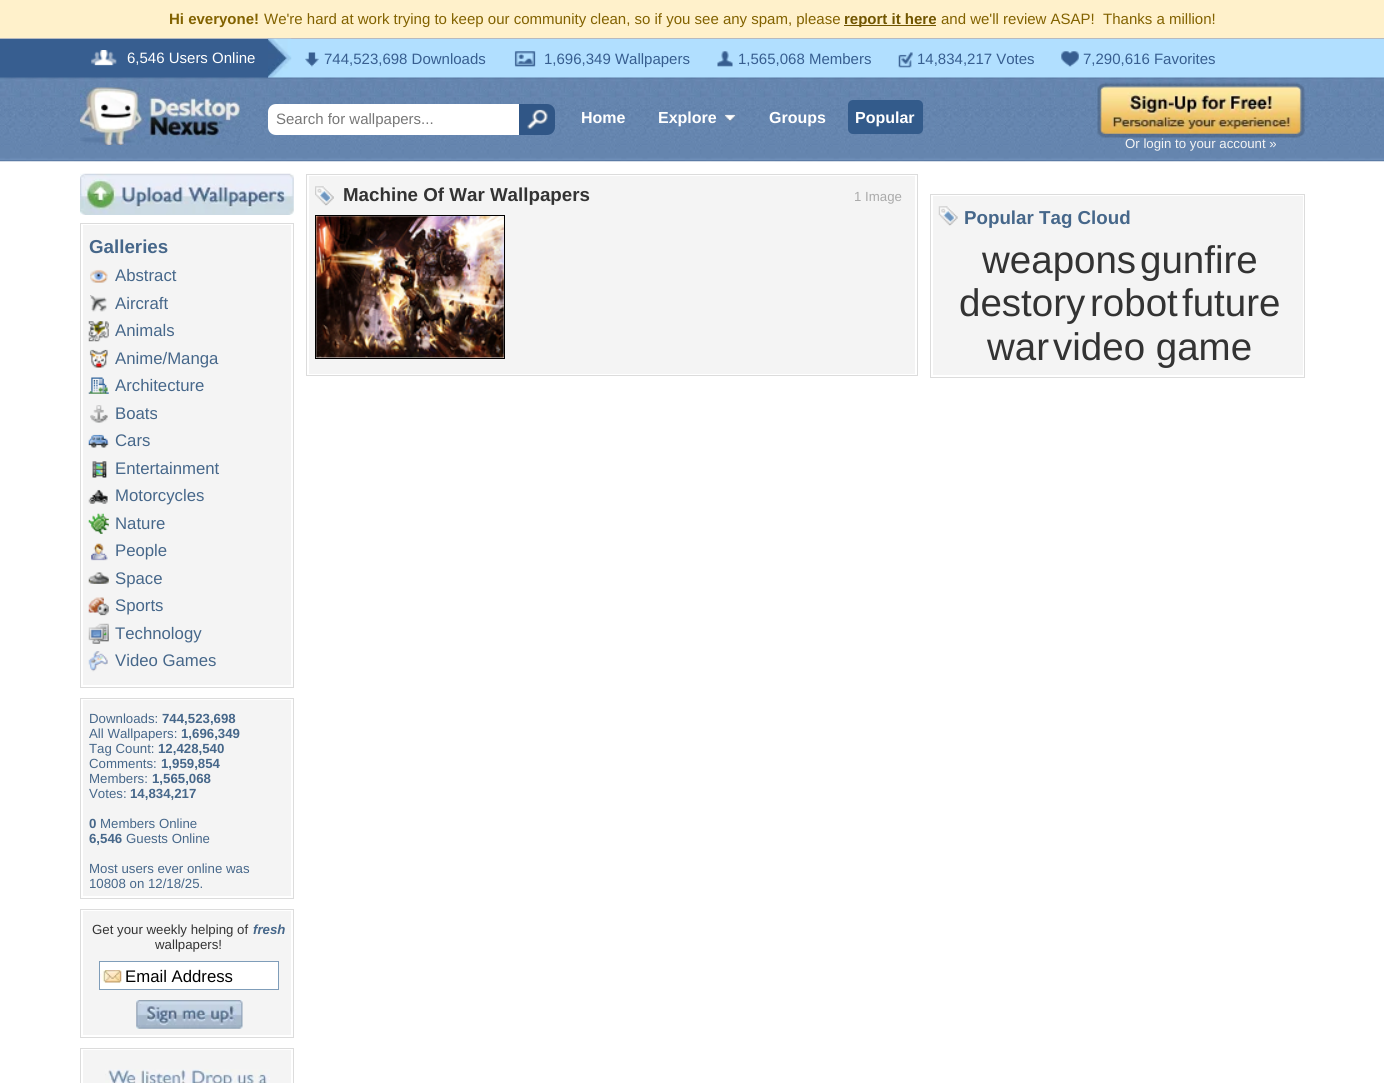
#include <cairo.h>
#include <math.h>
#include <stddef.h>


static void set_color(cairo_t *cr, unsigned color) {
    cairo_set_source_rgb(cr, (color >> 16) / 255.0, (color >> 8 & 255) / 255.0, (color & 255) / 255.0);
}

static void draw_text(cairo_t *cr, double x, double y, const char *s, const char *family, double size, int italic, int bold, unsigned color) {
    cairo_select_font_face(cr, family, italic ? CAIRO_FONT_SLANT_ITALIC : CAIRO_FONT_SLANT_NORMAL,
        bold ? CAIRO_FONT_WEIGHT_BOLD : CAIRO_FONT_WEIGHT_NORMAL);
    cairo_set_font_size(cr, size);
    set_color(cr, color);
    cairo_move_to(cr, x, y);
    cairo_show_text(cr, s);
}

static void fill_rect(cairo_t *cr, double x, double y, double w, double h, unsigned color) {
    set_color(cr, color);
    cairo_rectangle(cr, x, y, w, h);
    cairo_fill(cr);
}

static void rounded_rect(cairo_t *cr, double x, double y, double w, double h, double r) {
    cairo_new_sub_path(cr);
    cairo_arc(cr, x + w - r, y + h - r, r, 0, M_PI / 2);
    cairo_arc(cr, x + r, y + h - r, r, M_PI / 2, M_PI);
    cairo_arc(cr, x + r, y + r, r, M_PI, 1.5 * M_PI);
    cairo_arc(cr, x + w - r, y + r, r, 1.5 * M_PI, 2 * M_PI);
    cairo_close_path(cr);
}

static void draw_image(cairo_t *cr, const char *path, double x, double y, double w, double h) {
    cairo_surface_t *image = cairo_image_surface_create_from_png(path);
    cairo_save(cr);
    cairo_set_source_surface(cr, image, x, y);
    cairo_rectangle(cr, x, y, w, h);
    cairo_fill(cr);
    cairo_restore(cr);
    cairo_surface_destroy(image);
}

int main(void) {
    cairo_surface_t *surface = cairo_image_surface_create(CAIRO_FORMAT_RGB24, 1384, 1083);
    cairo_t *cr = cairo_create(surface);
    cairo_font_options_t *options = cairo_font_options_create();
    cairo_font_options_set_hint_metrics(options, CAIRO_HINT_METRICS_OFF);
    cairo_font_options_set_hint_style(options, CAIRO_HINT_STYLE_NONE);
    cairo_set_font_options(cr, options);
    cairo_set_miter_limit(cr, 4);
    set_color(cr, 0xFFFFFF);
    cairo_paint(cr);
    fill_rect(cr, 0, 0, 1384, 38, 0xFFF1CB);
    draw_text(cr, 169, 24, "Hi everyone!", "Liberation Sans", 15, 0, 1, 0x826200);
    draw_text(cr, 264, 24, "We're hard at work trying to keep our community clean, so if you see any spam, please", "Liberation Sans", 15, 0, 0, 0x826200);
    fill_rect(cr, 844, 25, 92, 1, 0x705500);
    draw_text(cr, 844, 24, "report it here", "Liberation Sans", 15, 0, 1, 0x705500);
    draw_text(cr, 941, 24, "and we'll review ASAP!  Thanks a million!", "Liberation Sans", 15, 0, 0, 0x826200);
    fill_rect(cr, 268, 39, 1116, 39, 0xB1DFFF);
    fill_rect(cr, 0, 38, 1384, 1, 0xB6BAC0);
    draw_image(cr, "assets/img2.png", 267, 38, 25, 40);
    fill_rect(cr, 0, 39, 268, 39, 0x375E90);
    draw_image(cr, "assets/img1.png", 91, 50, 26, 16);
    draw_text(cr, 127, 63, "6,546 Users Online", "Liberation Sans", 15, 0, 0, 0xFFFFFF);
    draw_image(cr, "assets/img3.png", 305, 52, 14, 15);
    draw_text(cr, 324, 64, "744,523,698 Downloads", "Liberation Sans", 15, 0, 0, 0x375E90);
    draw_image(cr, "assets/img4.png", 514, 51, 22, 16);
    draw_text(cr, 544, 64, "1,696,349 Wallpapers", "Liberation Sans", 15, 0, 0, 0x375E90);
    draw_image(cr, "assets/img5.png", 717, 51, 16, 16);
    draw_text(cr, 738, 64, "1,565,068 Members", "Liberation Sans", 15, 0, 0, 0x375E90);
    draw_image(cr, "assets/img6.png", 898, 52, 15, 16);
    draw_text(cr, 917, 64, "14,834,217 Votes", "Liberation Sans", 15, 0, 0, 0x375E90);
    draw_image(cr, "assets/img7.png", 1061, 51, 18, 16);
    draw_text(cr, 1083, 64, "7,290,616 Favorites", "Liberation Sans", 15, 0, 0, 0x375E90);
    draw_image(cr, "assets/img8.png", 0, 77, 1384, 85);
    draw_image(cr, "assets/img9.png", 80, 87, 160, 58);
    set_color(cr, 0xFFFFFF);
    cairo_new_path(cr);
    cairo_move_to(cr, 276, 104);
    cairo_line_to(cr, 539, 104);
    cairo_line_to(cr, 539, 135);
    cairo_line_to(cr, 276, 135);
    cairo_curve_to(cr, 271.5, 135, 268, 131.5, 268, 127);
    cairo_line_to(cr, 268, 112);
    cairo_curve_to(cr, 268, 107.5, 271.5, 104, 276, 104);
    cairo_close_path(cr);
    cairo_fill(cr);
    draw_text(cr, 276, 124, "Search for wallpapers...", "Liberation Sans", 15, 0, 0, 0x777777);
    set_color(cr, 0x305686);
    cairo_new_path(cr);
    cairo_move_to(cr, 519, 104);
    cairo_line_to(cr, 547, 104);
    cairo_curve_to(cr, 551.5, 104, 555, 107.5, 555, 112);
    cairo_line_to(cr, 555, 127);
    cairo_curve_to(cr, 555, 131.5, 551.5, 135, 547, 135);
    cairo_line_to(cr, 519, 135);
    cairo_close_path(cr);
    cairo_fill(cr);
    draw_image(cr, "assets/img10.png", 527, 109, 21, 20);
    draw_text(cr, 581, 123, "Home", "Liberation Sans", 16, 0, 1, 0xFFFFFF);
    draw_text(cr, 658, 123, "Explore", "Liberation Sans", 16, 0, 1, 0xFFFFFF);
    draw_image(cr, "assets/img11.png", 724, 114, 13, 8);
    draw_text(cr, 769, 123, "Groups", "Liberation Sans", 16, 0, 1, 0xFFFFFF);
    set_color(cr, 0x335B8B);
    rounded_rect(cr, 848, 100, 75, 34, 5);
    cairo_fill(cr);
    draw_text(cr, 855, 123, "Popular", "Liberation Sans", 16, 0, 1, 0xFFFFFF);
    draw_image(cr, "assets/img12.png", 1097, 82, 208, 56);
    draw_text(cr, 1125, 148, "Or login to your account »", "Liberation Sans", 13.25, 0, 0, 0xF4F4F4);
    cairo_rectangle(cr, 306.5, 174.5, 611, 201);
    set_color(cr, 0xDCDCDC);
    cairo_set_line_width(cr, 1);
    cairo_stroke(cr);
    fill_rect(cr, 309, 176, 606, 198, 0xF4F4F4);
    draw_image(cr, "assets/img13.png", 315, 186, 19, 20);
    draw_text(cr, 343, 201, "Machine Of War Wallpapers", "Liberation Sans", 18.75, 0, 1, 0x333333);
    draw_text(cr, 854, 201, "1 Image", "Liberation Sans", 13.25, 0, 0, 0xAAAAAA);
    cairo_rectangle(cr, 315.5, 215.5, 189, 143);
    set_color(cr, 0x000000);
    cairo_stroke(cr);
    draw_image(cr, "assets/img14.png", 316, 216, 188, 142);
    draw_image(cr, "assets/img15.png", 80, 173, 214, 42);
    cairo_rectangle(cr, 80.5, 223.5, 213, 464);
    set_color(cr, 0xDCDCDC);
    cairo_stroke(cr);
    fill_rect(cr, 83, 225, 208, 460, 0xF4F4F4);
    draw_text(cr, 89, 253, "Galleries", "Liberation Sans", 18.75, 0, 1, 0x46678A);
    draw_image(cr, "assets/img16.png", 90, 269, 18, 14);
    draw_text(cr, 115, 281, "Abstract", "Liberation Sans", 16.75, 0, 0, 0x46678A);
    draw_image(cr, "assets/img17.png", 90, 295, 17, 17);
    draw_text(cr, 115, 309, "Aircraft", "Liberation Sans", 16.75, 0, 0, 0x46678A);
    draw_image(cr, "assets/img18.png", 88, 321, 21, 21);
    draw_text(cr, 115, 336, "Animals", "Liberation Sans", 16.75, 0, 0, 0x46678A);
    draw_image(cr, "assets/img19.png", 89, 349, 19, 19);
    draw_text(cr, 115, 364, "Anime/Manga", "Liberation Sans", 16.75, 0, 0, 0x46678A);
    draw_image(cr, "assets/img20.png", 88, 377, 21, 17);
    draw_text(cr, 115, 391, "Architecture", "Liberation Sans", 16.75, 0, 0, 0x46678A);
    draw_image(cr, "assets/img21.png", 90, 405, 18, 18);
    draw_text(cr, 115, 419, "Boats", "Liberation Sans", 16.75, 0, 0, 0x46678A);
    draw_image(cr, "assets/img22.png", 88, 434, 21, 14);
    draw_text(cr, 115, 446, "Cars", "Liberation Sans", 16.75, 0, 0, 0x46678A);
    draw_image(cr, "assets/img23.png", 92, 461, 15, 17);
    draw_text(cr, 115, 474, "Entertainment", "Liberation Sans", 16.75, 0, 0, 0x46678A);
    draw_image(cr, "assets/img24.png", 88, 489, 21, 15);
    draw_text(cr, 115, 501, "Motorcycles", "Liberation Sans", 16.75, 0, 0, 0x46678A);
    draw_image(cr, "assets/img25.png", 88, 513, 21, 21);
    draw_text(cr, 115, 529, "Nature", "Liberation Sans", 16.75, 0, 0, 0x46678A);
    draw_image(cr, "assets/img26.png", 91, 543, 17, 18);
    draw_text(cr, 115, 556, "People", "Liberation Sans", 16.75, 0, 0, 0x46678A);
    draw_image(cr, "assets/img27.png", 88, 572, 21, 12);
    draw_text(cr, 115, 584, "Space", "Liberation Sans", 16.75, 0, 0, 0x46678A);
    draw_image(cr, "assets/img28.png", 88, 597, 21, 19);
    draw_text(cr, 115, 611, "Sports", "Liberation Sans", 16.75, 0, 0, 0x46678A);
    draw_image(cr, "assets/img29.png", 88, 623, 21, 21);
    draw_text(cr, 115, 639, "Technology", "Liberation Sans", 16.75, 0, 0, 0x46678A);
    draw_image(cr, "assets/img30.png", 88, 651, 20, 21);
    draw_text(cr, 115, 666, "Video Games", "Liberation Sans", 16.75, 0, 0, 0x46678A);
    cairo_rectangle(cr, 80.5, 698.5, 213, 200);
    set_color(cr, 0xDCDCDC);
    cairo_stroke(cr);
    fill_rect(cr, 83, 700, 208, 196, 0xF4F4F4);
    draw_text(cr, 89, 723, "Downloads:", "Liberation Sans", 13.25, 0, 0, 0x46678A);
    draw_text(cr, 162, 723, "744,523,698", "Liberation Sans", 13.25, 0, 1, 0x46678A);
    draw_text(cr, 89, 738, "All Wallpapers:", "Liberation Sans", 13.25, 0, 0, 0x46678A);
    draw_text(cr, 181, 738, "1,696,349", "Liberation Sans", 13.25, 0, 1, 0x46678A);
    draw_text(cr, 89, 753, "Tag Count:", "Liberation Sans", 13.25, 0, 0, 0x46678A);
    draw_text(cr, 158, 753, "12,428,540", "Liberation Sans", 13.25, 0, 1, 0x46678A);
    draw_text(cr, 89, 768, "Comments:", "Liberation Sans", 13.25, 0, 0, 0x46678A);
    draw_text(cr, 161, 768, "1,959,854", "Liberation Sans", 13.25, 0, 1, 0x46678A);
    draw_text(cr, 89, 783, "Members:", "Liberation Sans", 13.25, 0, 0, 0x46678A);
    draw_text(cr, 152, 783, "1,565,068", "Liberation Sans", 13.25, 0, 1, 0x46678A);
    draw_text(cr, 89, 798, "Votes:", "Liberation Sans", 13.25, 0, 0, 0x46678A);
    draw_text(cr, 130, 798, "14,834,217", "Liberation Sans", 13.25, 0, 1, 0x46678A);
    draw_text(cr, 89, 828, "0", "Liberation Sans", 13.25, 0, 1, 0x46678A);
    draw_text(cr, 100, 828, "Members Online", "Liberation Sans", 13.25, 0, 0, 0x46678A);
    draw_text(cr, 89, 843, "6,546", "Liberation Sans", 13.25, 0, 1, 0x46678A);
    draw_text(cr, 126, 843, "Guests Online", "Liberation Sans", 13.25, 0, 0, 0x46678A);
    draw_text(cr, 89, 873, "Most users ever online was", "Liberation Sans", 13.25, 0, 0, 0x46678A);
    draw_text(cr, 89, 888, "10808 on 12/18/25.", "Liberation Sans", 13.25, 0, 0, 0x46678A);
    cairo_rectangle(cr, 80.5, 909.5, 213, 128);
    set_color(cr, 0xDCDCDC);
    cairo_stroke(cr);
    fill_rect(cr, 83, 911, 208, 124, 0xF4F4F4);
    draw_text(cr, 92, 934, "Get your weekly helping of", "Liberation Sans", 13.25, 0, 0, 0x333333);
    draw_text(cr, 253, 934, "fresh", "Liberation Sans", 13.25, 1, 1, 0x46678A);
    draw_text(cr, 155, 949, "wallpapers!", "Liberation Sans", 13.25, 0, 0, 0x333333);
    fill_rect(cr, 100, 962, 178, 27, 0xFFFFFF);
    draw_image(cr, "assets/img31.png", 100, 970, 22, 13);
    cairo_rectangle(cr, 99.5, 961.5, 179, 28);
    set_color(cr, 0x7F9DB9);
    cairo_stroke(cr);
    draw_text(cr, 125, 982, "Email Address", "Liberation Sans", 16.75, 0, 0, 0x000000);
    draw_image(cr, "assets/img32.png", 136, 1000, 107, 29);
    cairo_rectangle(cr, 80.5, 1048.5, 213, 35);
    set_color(cr, 0xDCDCDC);
    cairo_stroke(cr);
    fill_rect(cr, 83, 1050, 208, 33, 0xF4F4F4);
    draw_image(cr, "assets/img33.png", 105, 1069, 165, 14);
    cairo_rectangle(cr, 930.5, 194.5, 374, 183);
    set_color(cr, 0xDCDCDC);
    cairo_stroke(cr);
    fill_rect(cr, 933, 196, 370, 179, 0xF4F4F4);
    draw_image(cr, "assets/img34.png", 938, 206, 20, 20);
    draw_text(cr, 964, 224, "Popular Tag Cloud", "Liberation Sans", 18.75, 0, 1, 0x46678A);
    draw_text(cr, 982, 273, "weapons", "Liberation Sans", 38.5, 0, 0, 0x333333);
    draw_text(cr, 1140, 273, "gunfire", "Liberation Sans", 38.5, 0, 0, 0x333333);
    draw_text(cr, 959, 316, "destory", "Liberation Sans", 38.5, 0, 0, 0x333333);
    draw_text(cr, 1090, 316, "robot", "Liberation Sans", 38.5, 0, 0, 0x333333);
    draw_text(cr, 1182, 316, "future", "Liberation Sans", 38.5, 0, 0, 0x333333);
    draw_text(cr, 987, 360, "war", "Liberation Sans", 38.5, 0, 0, 0x333333);
    draw_text(cr, 1053, 360, "video game", "Liberation Sans", 38.5, 0, 0, 0x333333);
    cairo_surface_write_to_png(surface, "output.png");
    cairo_font_options_destroy(options);
    cairo_destroy(cr);
    cairo_surface_destroy(surface);
    return 0;
}
